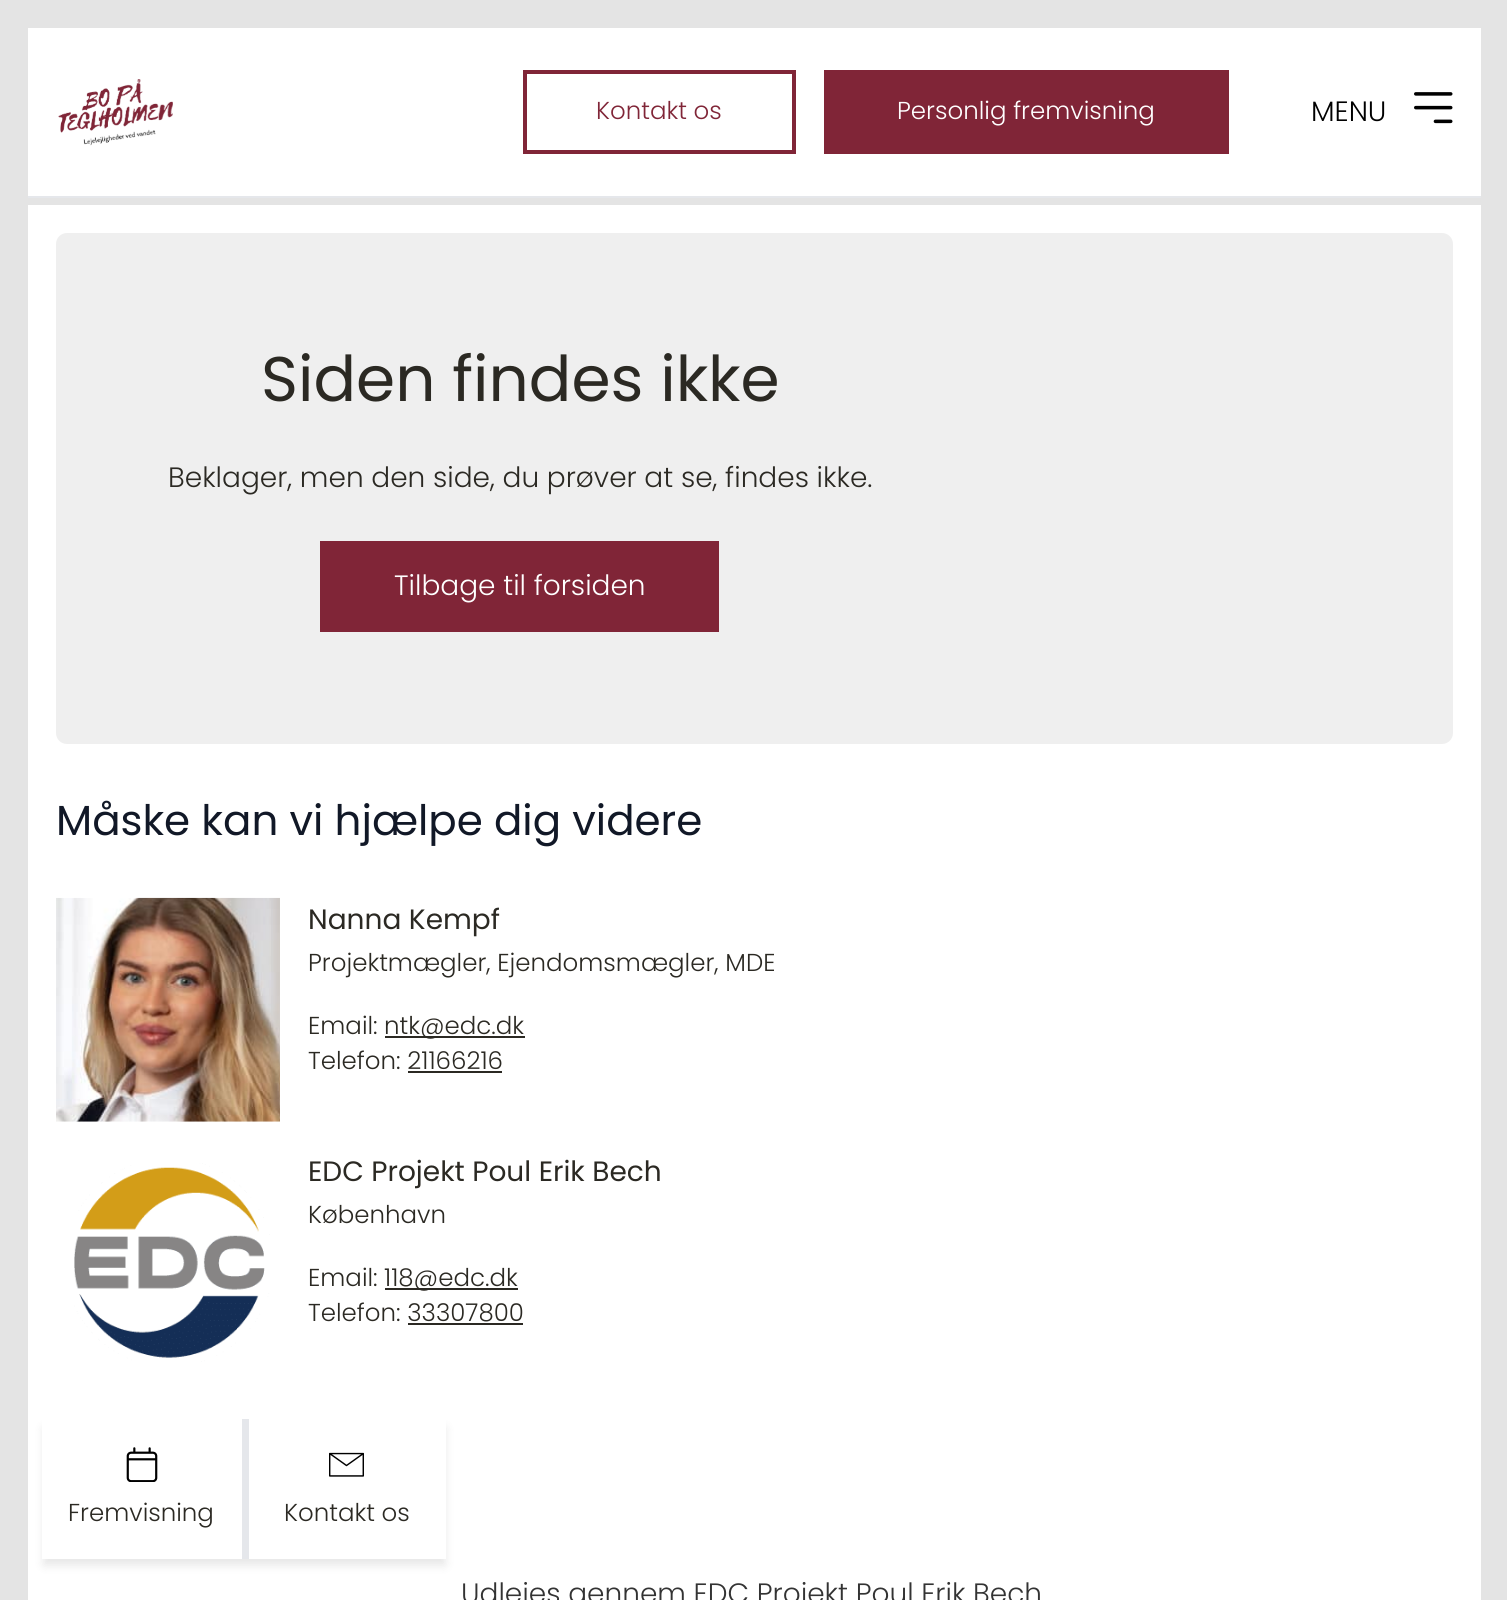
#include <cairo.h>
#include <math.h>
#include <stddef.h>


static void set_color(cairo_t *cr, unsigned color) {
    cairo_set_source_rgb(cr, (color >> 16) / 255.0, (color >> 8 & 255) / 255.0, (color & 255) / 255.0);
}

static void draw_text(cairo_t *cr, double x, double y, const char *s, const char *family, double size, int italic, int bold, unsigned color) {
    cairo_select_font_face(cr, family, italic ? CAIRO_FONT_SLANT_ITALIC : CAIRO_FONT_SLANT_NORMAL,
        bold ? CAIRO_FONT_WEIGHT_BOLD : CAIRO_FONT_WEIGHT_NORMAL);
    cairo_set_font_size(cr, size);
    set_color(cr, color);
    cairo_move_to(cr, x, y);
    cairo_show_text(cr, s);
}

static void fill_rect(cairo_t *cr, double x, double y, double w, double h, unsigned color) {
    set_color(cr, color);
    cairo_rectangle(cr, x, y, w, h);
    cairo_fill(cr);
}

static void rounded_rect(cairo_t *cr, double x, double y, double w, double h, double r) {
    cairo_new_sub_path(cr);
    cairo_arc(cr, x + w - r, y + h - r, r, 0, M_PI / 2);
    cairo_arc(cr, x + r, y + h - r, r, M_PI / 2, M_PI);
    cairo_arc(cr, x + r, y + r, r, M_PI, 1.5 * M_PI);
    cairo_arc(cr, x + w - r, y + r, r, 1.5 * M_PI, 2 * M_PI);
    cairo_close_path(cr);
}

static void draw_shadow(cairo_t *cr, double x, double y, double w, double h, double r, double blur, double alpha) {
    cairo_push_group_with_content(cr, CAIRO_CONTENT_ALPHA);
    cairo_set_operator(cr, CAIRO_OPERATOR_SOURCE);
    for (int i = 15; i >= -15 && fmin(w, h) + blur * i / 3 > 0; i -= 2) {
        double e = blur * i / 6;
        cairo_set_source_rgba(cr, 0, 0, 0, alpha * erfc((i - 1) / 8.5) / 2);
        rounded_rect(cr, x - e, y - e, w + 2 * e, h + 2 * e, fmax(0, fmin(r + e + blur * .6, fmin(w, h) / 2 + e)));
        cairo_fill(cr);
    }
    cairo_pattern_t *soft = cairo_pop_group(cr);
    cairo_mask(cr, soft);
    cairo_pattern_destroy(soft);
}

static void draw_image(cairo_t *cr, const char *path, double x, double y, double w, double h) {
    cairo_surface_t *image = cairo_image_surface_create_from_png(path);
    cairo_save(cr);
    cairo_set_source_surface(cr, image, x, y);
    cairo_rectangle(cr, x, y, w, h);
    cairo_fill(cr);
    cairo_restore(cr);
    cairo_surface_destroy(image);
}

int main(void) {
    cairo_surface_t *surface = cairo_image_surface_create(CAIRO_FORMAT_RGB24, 1507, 1600);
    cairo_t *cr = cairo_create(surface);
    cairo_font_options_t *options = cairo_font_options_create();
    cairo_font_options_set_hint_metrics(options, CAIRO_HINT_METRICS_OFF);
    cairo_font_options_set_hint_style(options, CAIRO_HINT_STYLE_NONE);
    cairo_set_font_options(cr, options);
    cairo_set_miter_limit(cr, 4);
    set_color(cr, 0xE4E4E4);
    cairo_paint(cr);
    fill_rect(cr, 28, 205, 1453, 1395, 0xFFFFFF);
    fill_rect(cr, 28, 28, 1453, 168, 0xFFFFFF);
    fill_rect(cr, 28, 196, 1453, 2, 0xE5E7EB);
    draw_image(cr, "assets/img1.png", 58, 79, 115, 67);
    cairo_rectangle(cr, 525, 72, 269, 80);
    set_color(cr, 0x802537);
    cairo_set_line_width(cr, 4);
    cairo_stroke(cr);
    draw_text(cr, 596, 119, "Kontakt os", "Poppins Light", 24.5, 0, 0, 0x802537);
    fill_rect(cr, 824, 70, 405, 84, 0x802537);
    draw_text(cr, 897, 119, "Personlig fremvisning", "Poppins Light", 24.5, 0, 0, 0xFFFFFF);
    draw_text(cr, 1311, 121, "MENU", "Poppins Light", 28, 0, 0, 0x000000);
    draw_image(cr, "assets/img2.png", 1414, 92, 39, 32);
    set_color(cr, 0xEFEFEF);
    rounded_rect(cr, 56, 233, 1397, 511, 11);
    cairo_fill(cr);
    draw_text(cr, 261, 401, "Siden findes ikke", "Poppins", 63, 0, 0, 0x2B2923);
    draw_text(cr, 168, 487, "Beklager, men den side, du prøver at se, findes ikke.", "Poppins Light", 28, 0, 0, 0x2B2923);
    fill_rect(cr, 320, 541, 399, 91, 0x802537);
    draw_text(cr, 394, 595, "Tilbage til forsiden", "Poppins Light", 28, 0, 0, 0xFFFFFF);
    draw_text(cr, 56, 835, "Måske kan vi hjælpe dig videre", "Poppins", 42, 0, 0, 0x111827);
    draw_image(cr, "assets/img3.png", 56, 897, 224, 225);
    draw_text(cr, 308, 929, "Nanna Kempf", "Poppins", 28, 0, 0, 0x2B2923);
    draw_text(cr, 308, 971, "Projektmægler, Ejendomsmægler, MDE", "Poppins Light", 24.5, 0, 0, 0x2B2923);
    draw_text(cr, 308, 1034, "Email:", "Poppins Light", 24.5, 0, 0, 0x2B2923);
    fill_rect(cr, 385, 1036, 140, 2, 0x2B2923);
    draw_text(cr, 384, 1034, "ntk@edc.dk", "Poppins Light", 24.5, 0, 0, 0x2B2923);
    draw_text(cr, 308, 1069, "Telefon: 21166216", "Poppins Light", 24.5, 0, 0, 0x2B2923);
    fill_rect(cr, 408, 1071, 94, 2, 0x2B2923);
    draw_image(cr, "assets/img4.png", 74, 1163, 196, 199);
    draw_text(cr, 308, 1181, "EDC Projekt Poul Erik Bech", "Poppins", 28, 0, 0, 0x2B2923);
    draw_text(cr, 308, 1223, "København", "Poppins Light", 24.5, 0, 0, 0x2B2923);
    draw_text(cr, 308, 1286, "Email:", "Poppins Light", 24.5, 0, 0, 0x2B2923);
    fill_rect(cr, 385, 1288, 133, 2, 0x2B2923);
    draw_text(cr, 384, 1286, "118@edc.dk", "Poppins Light", 24.5, 0, 0, 0x2B2923);
    draw_text(cr, 308, 1321, "Telefon: 33307800", "Poppins Light", 24.5, 0, 0, 0x2B2923);
    fill_rect(cr, 408, 1323, 115, 2, 0x2B2923);
    cairo_save(cr);
    cairo_set_fill_rule(cr, CAIRO_FILL_RULE_EVEN_ODD);
    cairo_new_path(cr);
    cairo_move_to(cr, 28, 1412);
    cairo_line_to(cr, 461, 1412);
    cairo_line_to(cr, 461, 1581);
    cairo_line_to(cr, 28, 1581);
    cairo_close_path(cr);
    cairo_move_to(cr, 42, 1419);
    cairo_line_to(cr, 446, 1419);
    cairo_line_to(cr, 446, 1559);
    cairo_line_to(cr, 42, 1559);
    cairo_close_path(cr);
    cairo_clip(cr);
    set_color(cr, 0x000000);
    draw_shadow(cr, 44, 1428, 401, 137, 0, 5, 0.1);
    cairo_restore(cr);
    fill_rect(cr, 242, 1419, 7, 140, 0xE5E7EB);
    draw_image(cr, "assets/img5.png", 126, 1447, 32, 35);
    draw_text(cr, 68, 1521, "Fremvisning", "Poppins Light", 24.5, 0, 0, 0x2B2923);
    draw_image(cr, "assets/img6.png", 329, 1452, 35, 25);
    draw_text(cr, 284, 1521, "Kontakt os", "Poppins Light", 24.5, 0, 0, 0x2B2923);
    draw_text(cr, 461, 1603, "Udlejes gennem EDC Projekt Poul Erik Bech", "Poppins Light", 28, 0, 0, 0x333333);
    cairo_surface_write_to_png(surface, "output.png");
    cairo_font_options_destroy(options);
    cairo_destroy(cr);
    cairo_surface_destroy(surface);
    return 0;
}
